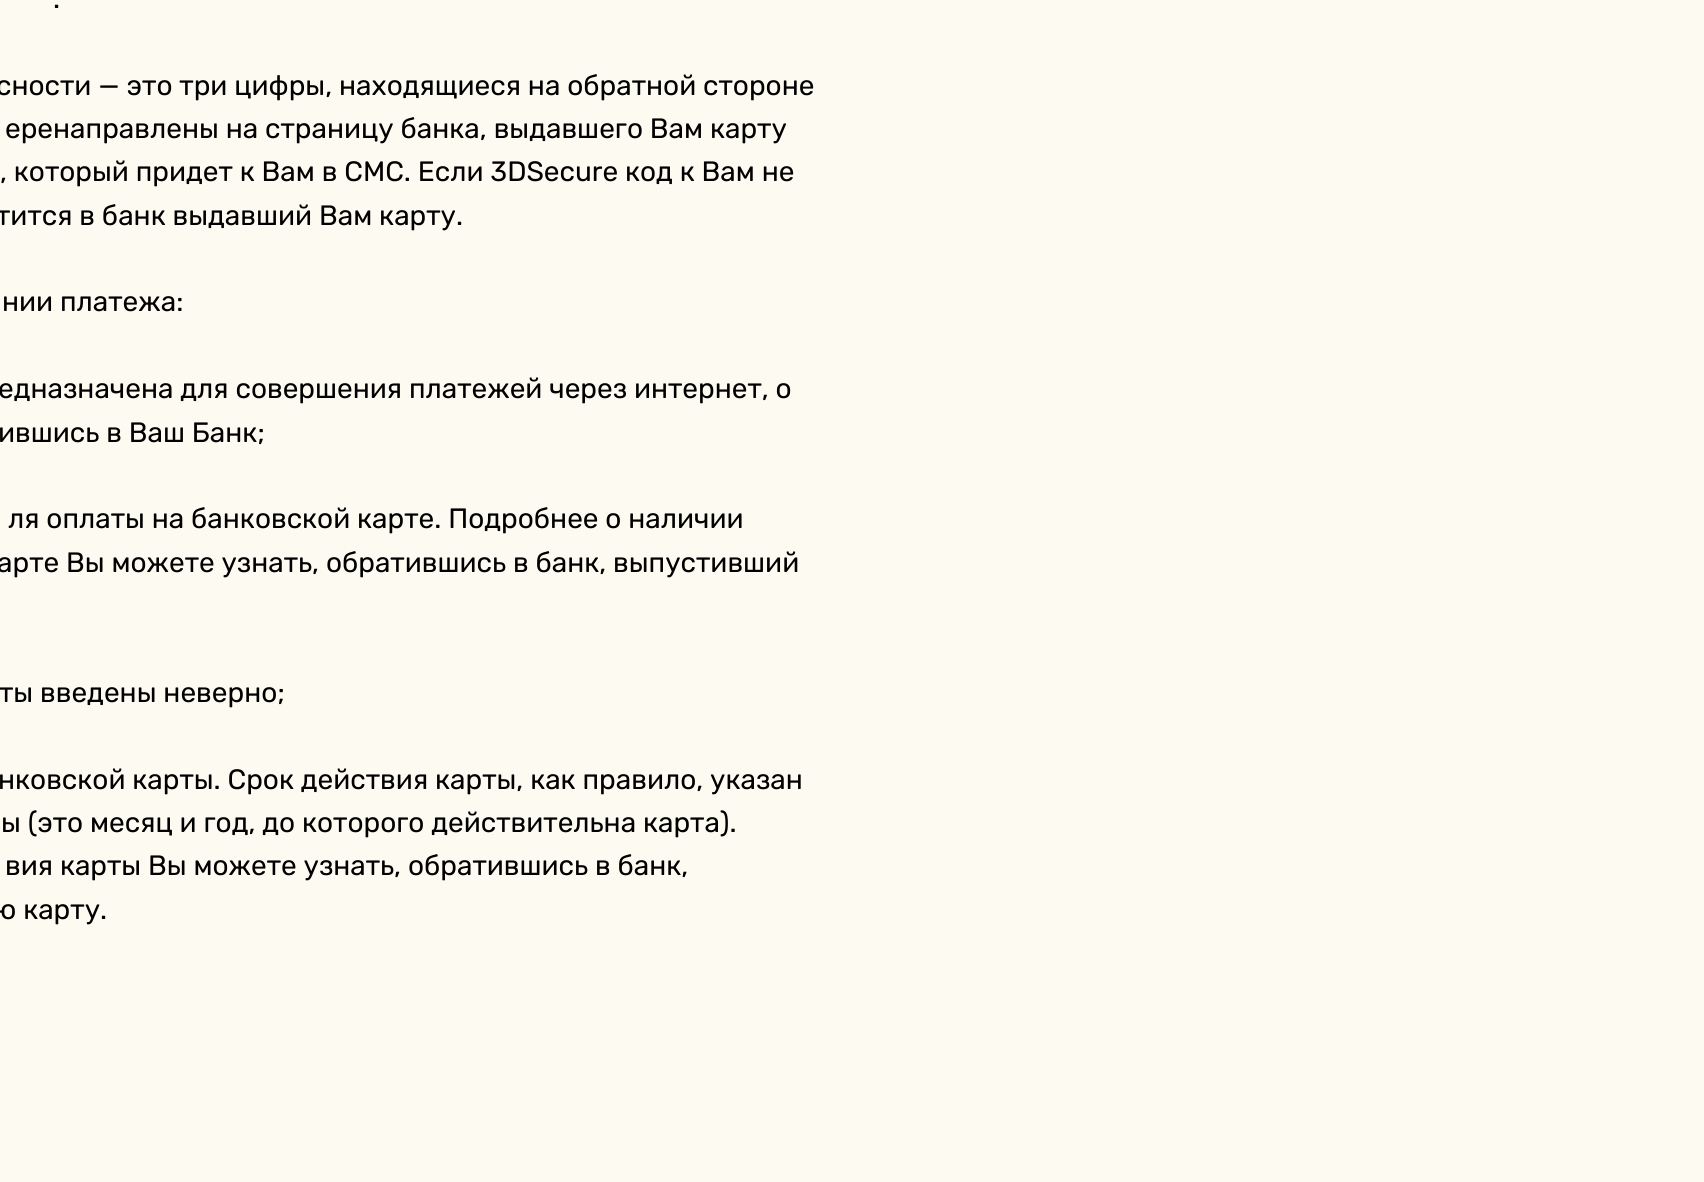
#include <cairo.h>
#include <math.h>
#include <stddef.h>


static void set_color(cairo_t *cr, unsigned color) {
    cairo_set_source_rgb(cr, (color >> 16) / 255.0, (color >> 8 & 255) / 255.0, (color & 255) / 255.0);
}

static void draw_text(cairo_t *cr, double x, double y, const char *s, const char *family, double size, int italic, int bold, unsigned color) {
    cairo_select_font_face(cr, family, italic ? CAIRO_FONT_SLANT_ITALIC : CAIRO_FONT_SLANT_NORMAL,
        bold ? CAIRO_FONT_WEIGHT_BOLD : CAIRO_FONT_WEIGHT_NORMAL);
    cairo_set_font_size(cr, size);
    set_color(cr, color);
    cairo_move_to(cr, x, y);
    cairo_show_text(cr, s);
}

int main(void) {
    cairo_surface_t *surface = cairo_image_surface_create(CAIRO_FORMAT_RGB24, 1704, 1182);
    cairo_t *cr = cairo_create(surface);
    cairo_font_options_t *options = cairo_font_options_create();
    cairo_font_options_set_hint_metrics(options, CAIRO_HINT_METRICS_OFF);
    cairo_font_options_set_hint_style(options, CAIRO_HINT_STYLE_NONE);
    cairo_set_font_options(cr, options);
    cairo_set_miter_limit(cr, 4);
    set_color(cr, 0xFDFAF1);
    cairo_paint(cr);
    draw_text(cr, 53, 8, ".", "Rubik", 28, 0, 0, 0x000000);
    draw_text(cr, -4, 95, "сности — это три цифры, находящиеся на обратной стороне", "Rubik", 28, 0, 0, 0x000000);
    draw_text(cr, 5, 138, "еренаправлены на страницу банка, выдавшего Вам карту", "Rubik", 28, 0, 0, 0x000000);
    draw_text(cr, 0, 181, ", который придет к Вам в СМС. Если 3DSecure код к Вам не", "Rubik", 28, 0, 0, 0x000000);
    draw_text(cr, -4, 225, "тится в банк выдавший Вам карту.", "Rubik", 28, 0, 0, 0x000000);
    draw_text(cr, 2, 311, "нии платежа:", "Rubik", 28, 0, 0, 0x000000);
    draw_text(cr, -2, 398, "едназначена для совершения платежей через интернет, о", "Rubik", 28, 0, 0, 0x000000);
    draw_text(cr, -2, 442, "ившись в Ваш Банк;", "Rubik", 28, 0, 0, 0x000000);
    draw_text(cr, 8, 528, "ля оплаты на банковской карте. Подробнее о наличии", "Rubik", 28, 0, 0, 0x000000);
    draw_text(cr, -3, 572, "арте Вы можете узнать, обратившись в банк, выпустивший", "Rubik", 28, 0, 0, 0x000000);
    draw_text(cr, -1, 702, "ты введены неверно;", "Rubik", 28, 0, 0, 0x000000);
    draw_text(cr, -2, 789, "нковской карты. Срок действия карты, как правило, указан", "Rubik", 28, 0, 0, 0x000000);
    draw_text(cr, 1, 832, "ы (это месяц и год, до которого действительна карта).", "Rubik", 28, 0, 0, 0x000000);
    draw_text(cr, 5, 875, "вия карты Вы можете узнать, обратившись в банк,", "Rubik", 28, 0, 0, 0x000000);
    draw_text(cr, -6, 919, "ю карту.", "Rubik", 28, 0, 0, 0x000000);
    cairo_surface_write_to_png(surface, "output.png");
    cairo_font_options_destroy(options);
    cairo_destroy(cr);
    cairo_surface_destroy(surface);
    return 0;
}
